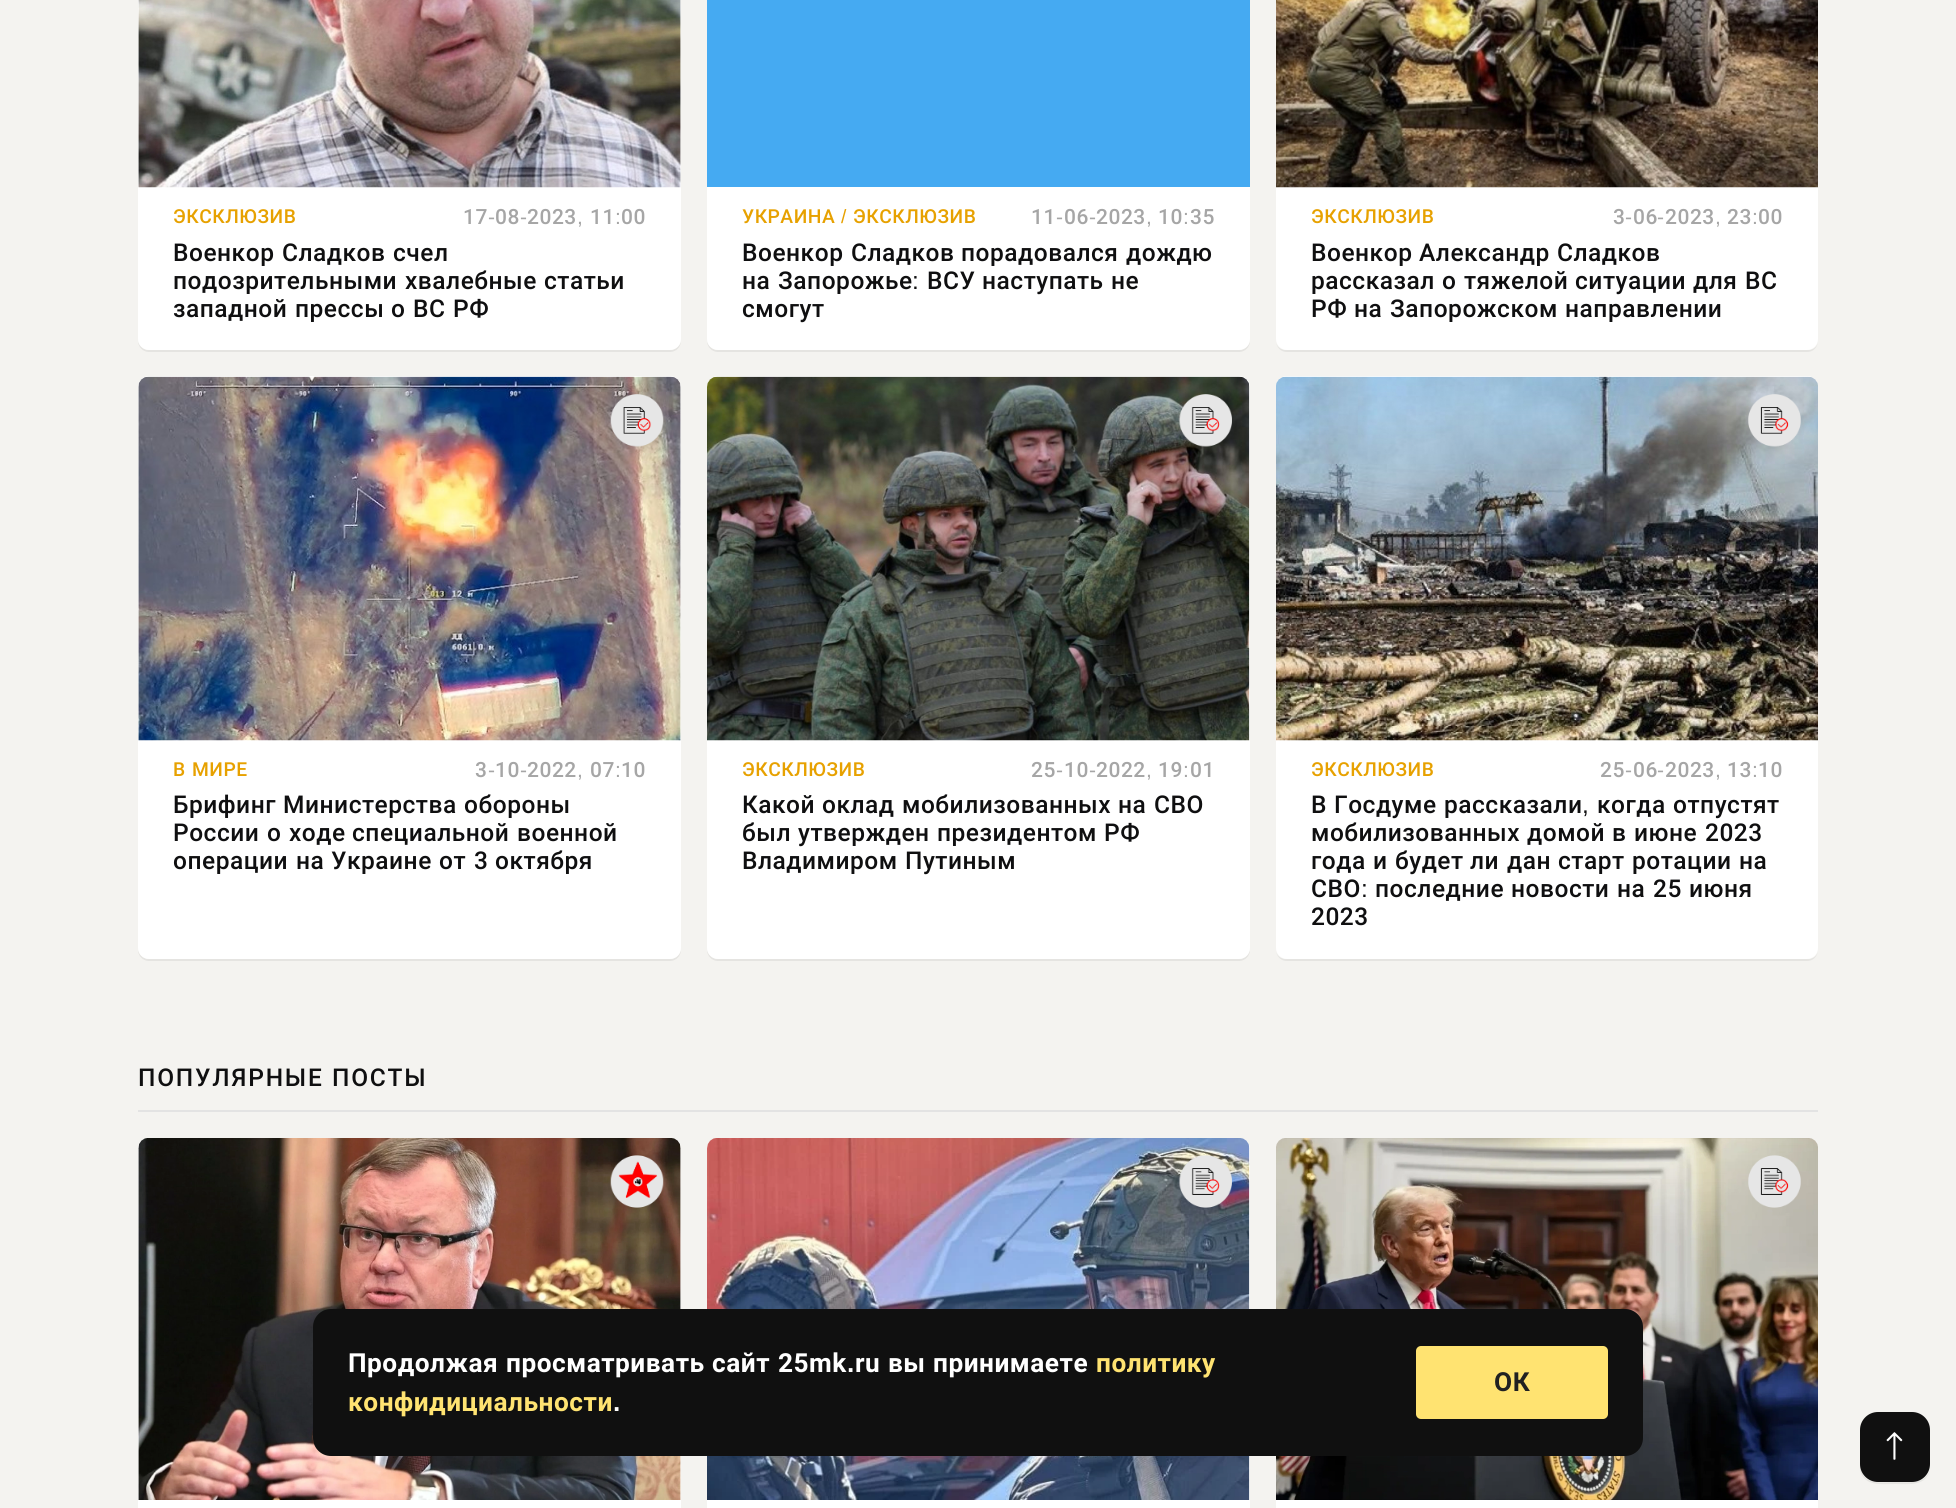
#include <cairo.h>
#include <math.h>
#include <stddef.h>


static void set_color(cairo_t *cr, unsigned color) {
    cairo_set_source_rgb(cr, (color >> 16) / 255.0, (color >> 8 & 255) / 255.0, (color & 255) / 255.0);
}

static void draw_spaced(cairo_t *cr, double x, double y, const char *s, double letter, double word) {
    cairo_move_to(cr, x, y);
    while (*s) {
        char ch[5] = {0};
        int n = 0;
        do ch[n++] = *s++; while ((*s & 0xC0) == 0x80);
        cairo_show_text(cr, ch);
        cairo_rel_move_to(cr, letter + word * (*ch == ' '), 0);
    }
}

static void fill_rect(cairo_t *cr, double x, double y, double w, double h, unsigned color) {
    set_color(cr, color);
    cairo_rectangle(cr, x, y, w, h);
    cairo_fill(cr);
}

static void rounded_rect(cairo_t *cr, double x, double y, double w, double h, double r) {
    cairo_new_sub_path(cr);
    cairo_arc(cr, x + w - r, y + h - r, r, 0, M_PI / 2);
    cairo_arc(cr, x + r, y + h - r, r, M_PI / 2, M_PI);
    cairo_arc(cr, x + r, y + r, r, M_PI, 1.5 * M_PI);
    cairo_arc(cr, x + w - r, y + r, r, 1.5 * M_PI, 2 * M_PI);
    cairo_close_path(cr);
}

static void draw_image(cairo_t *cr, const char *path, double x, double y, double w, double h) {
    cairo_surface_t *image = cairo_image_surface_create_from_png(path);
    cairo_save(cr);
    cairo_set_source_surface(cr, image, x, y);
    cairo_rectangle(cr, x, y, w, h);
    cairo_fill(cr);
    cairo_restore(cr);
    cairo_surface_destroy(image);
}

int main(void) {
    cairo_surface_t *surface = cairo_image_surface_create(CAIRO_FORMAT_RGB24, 1956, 1508);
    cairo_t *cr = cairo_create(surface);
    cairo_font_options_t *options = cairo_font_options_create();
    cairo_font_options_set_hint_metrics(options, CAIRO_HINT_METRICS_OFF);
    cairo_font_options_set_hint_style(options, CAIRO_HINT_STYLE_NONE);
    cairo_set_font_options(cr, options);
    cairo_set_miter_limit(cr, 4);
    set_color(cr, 0xF4F3F0);
    cairo_paint(cr);
    set_color(cr, 0xE5E4E1);
    cairo_new_path(cr);
    cairo_move_to(cr, 138, -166);
    cairo_line_to(cr, 138, 341);
    cairo_curve_to(cr, 138, 347, 143, 352, 149, 352);
    cairo_line_to(cr, 670, 352);
    cairo_curve_to(cr, 676, 352, 681, 347, 681, 341);
    cairo_line_to(cr, 681, -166);
    cairo_line_to(cr, 681, 340);
    cairo_curve_to(cr, 681, 345, 676, 350, 670, 350);
    cairo_line_to(cr, 149, 350);
    cairo_curve_to(cr, 143, 350, 138, 345, 138, 340);
    cairo_close_path(cr);
    cairo_fill(cr);
    set_color(cr, 0xFFFFFF);
    rounded_rect(cr, 138, -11, 543, 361, 11);
    cairo_fill(cr);
    draw_image(cr, "assets/img1.png", 138, 0, 543, 188);
    cairo_select_font_face(cr, "Roboto Medium", CAIRO_FONT_SLANT_NORMAL, CAIRO_FONT_WEIGHT_NORMAL);
    cairo_set_font_size(cr, 19.25);
    set_color(cr, 0xE7A100);
    draw_spaced(cr, 173, 223, "ЭКСКЛЮЗИВ", 0.5, 0);
    cairo_set_font_size(cr, 21);
    set_color(cr, 0xA6A6A6);
    draw_spaced(cr, 463, 224, "17", 0.5, 0);
    cairo_select_font_face(cr, "Liberation Sans", CAIRO_FONT_SLANT_NORMAL, CAIRO_FONT_WEIGHT_NORMAL);
    draw_spaced(cr, 488, 224, "-", 0.5, 0);
    cairo_select_font_face(cr, "Roboto Medium", CAIRO_FONT_SLANT_NORMAL, CAIRO_FONT_WEIGHT_NORMAL);
    draw_spaced(cr, 495, 224, "08", 0.5, 0);
    cairo_select_font_face(cr, "Liberation Sans", CAIRO_FONT_SLANT_NORMAL, CAIRO_FONT_WEIGHT_NORMAL);
    draw_spaced(cr, 520, 224, "-", 0.5, 0);
    cairo_select_font_face(cr, "Roboto Medium", CAIRO_FONT_SLANT_NORMAL, CAIRO_FONT_WEIGHT_NORMAL);
    draw_spaced(cr, 527, 224, "2023", 0.5, 0);
    draw_spaced(cr, 590, 224, "11", 0.5, 0);
    cairo_select_font_face(cr, "Liberation Sans", CAIRO_FONT_SLANT_NORMAL, CAIRO_FONT_WEIGHT_NORMAL);
    draw_spaced(cr, 615, 224, ":", 0.5, 0);
    cairo_select_font_face(cr, "Roboto Medium", CAIRO_FONT_SLANT_NORMAL, CAIRO_FONT_WEIGHT_NORMAL);
    draw_spaced(cr, 621, 224, "00", 0.5, 0);
    cairo_select_font_face(cr, "Liberation Sans", CAIRO_FONT_SLANT_NORMAL, CAIRO_FONT_WEIGHT_NORMAL);
    draw_spaced(cr, 577, 224, ",", 0.5, 0);
    cairo_select_font_face(cr, "Roboto Medium", CAIRO_FONT_SLANT_NORMAL, CAIRO_FONT_WEIGHT_NORMAL);
    cairo_set_font_size(cr, 24.5);
    set_color(cr, 0x0F0F10);
    draw_spaced(cr, 173, 261, "Военкор", 0.5, 0);
    draw_spaced(cr, 282, 261, "Сладков", 0.5, 0);
    draw_spaced(cr, 393, 261, "счел", 0.5, 0);
    draw_spaced(cr, 173, 289, "подозрительными", 0.5, 0);
    draw_spaced(cr, 405, 289, "хвалебные", 0.5, 0);
    draw_spaced(cr, 544, 289, "статьи", 0.5, 0);
    draw_spaced(cr, 173, 317, "западной", 0.5, 0);
    draw_spaced(cr, 295, 317, "прессы", 0.5, 0);
    draw_spaced(cr, 391, 317, "о", 0.5, 0);
    draw_spaced(cr, 413, 317, "ВС", 0.5, 0);
    draw_spaced(cr, 453, 317, "РФ", 0.5, 0);
    set_color(cr, 0xE5E4E1);
    cairo_new_path(cr);
    cairo_move_to(cr, 707, 340);
    cairo_line_to(cr, 707, 341);
    cairo_curve_to(cr, 707, 347, 712, 352, 718, 352);
    cairo_line_to(cr, 1239, 352);
    cairo_curve_to(cr, 1245, 352, 1250, 347, 1250, 341);
    cairo_line_to(cr, 1250, -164);
    cairo_line_to(cr, 1249, -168);
    cairo_line_to(cr, 1250, 340);
    cairo_curve_to(cr, 1250, 345, 1245, 350, 1239, 350);
    cairo_line_to(cr, 718, 350);
    cairo_curve_to(cr, 712, 350, 707, 345, 707, 340);
    cairo_close_path(cr);
    cairo_fill(cr);
    set_color(cr, 0xFFFFFF);
    rounded_rect(cr, 707, -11, 543, 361, 11);
    cairo_fill(cr);
    fill_rect(cr, 707, 0, 543, 187, 0x45AAF2);
    cairo_set_font_size(cr, 19.25);
    set_color(cr, 0xE7A100);
    draw_spaced(cr, 742, 223, "УКРАИНА", 0.5, 0);
    cairo_select_font_face(cr, "Liberation Sans", CAIRO_FONT_SLANT_NORMAL, CAIRO_FONT_WEIGHT_NORMAL);
    draw_spaced(cr, 841, 223, "/", 0.5, 0);
    cairo_select_font_face(cr, "Roboto Medium", CAIRO_FONT_SLANT_NORMAL, CAIRO_FONT_WEIGHT_NORMAL);
    draw_spaced(cr, 853, 223, "ЭКСКЛЮЗИВ", 0.5, 0);
    cairo_set_font_size(cr, 21);
    set_color(cr, 0xA6A6A6);
    draw_spaced(cr, 1031, 224, "11", 0.5, 0);
    cairo_select_font_face(cr, "Liberation Sans", CAIRO_FONT_SLANT_NORMAL, CAIRO_FONT_WEIGHT_NORMAL);
    draw_spaced(cr, 1056, 224, "-", 0.5, 0);
    cairo_select_font_face(cr, "Roboto Medium", CAIRO_FONT_SLANT_NORMAL, CAIRO_FONT_WEIGHT_NORMAL);
    draw_spaced(cr, 1064, 224, "06", 0.5, 0);
    cairo_select_font_face(cr, "Liberation Sans", CAIRO_FONT_SLANT_NORMAL, CAIRO_FONT_WEIGHT_NORMAL);
    draw_spaced(cr, 1089, 224, "-", 0.5, 0);
    cairo_select_font_face(cr, "Roboto Medium", CAIRO_FONT_SLANT_NORMAL, CAIRO_FONT_WEIGHT_NORMAL);
    draw_spaced(cr, 1096, 224, "2023", 0.5, 0);
    draw_spaced(cr, 1158, 224, "10", 0.5, 0);
    cairo_select_font_face(cr, "Liberation Sans", CAIRO_FONT_SLANT_NORMAL, CAIRO_FONT_WEIGHT_NORMAL);
    draw_spaced(cr, 1183, 224, ":", 0.5, 0);
    cairo_select_font_face(cr, "Roboto Medium", CAIRO_FONT_SLANT_NORMAL, CAIRO_FONT_WEIGHT_NORMAL);
    draw_spaced(cr, 1190, 224, "35", 0.5, 0);
    cairo_select_font_face(cr, "Liberation Sans", CAIRO_FONT_SLANT_NORMAL, CAIRO_FONT_WEIGHT_NORMAL);
    draw_spaced(cr, 1146, 224, ",", 0.5, 0);
    cairo_select_font_face(cr, "Roboto Medium", CAIRO_FONT_SLANT_NORMAL, CAIRO_FONT_WEIGHT_NORMAL);
    cairo_set_font_size(cr, 24.5);
    set_color(cr, 0x0F0F10);
    draw_spaced(cr, 742, 261, "Военкор", 0.5, 0);
    draw_spaced(cr, 851, 261, "Сладков", 0.5, 0);
    draw_spaced(cr, 961, 261, "порадовался", 0.5, 0);
    draw_spaced(cr, 1126, 261, "дождю", 0.5, 0);
    draw_spaced(cr, 742, 289, "на", 0.5, 0);
    draw_spaced(cr, 778, 289, "Запорожье", 0.5, 0);
    cairo_select_font_face(cr, "Liberation Sans", CAIRO_FONT_SLANT_NORMAL, CAIRO_FONT_WEIGHT_NORMAL);
    draw_spaced(cr, 912, 289, ":", 0.5, 0);
    cairo_select_font_face(cr, "Roboto Medium", CAIRO_FONT_SLANT_NORMAL, CAIRO_FONT_WEIGHT_NORMAL);
    draw_spaced(cr, 927, 289, "ВСУ", 0.5, 0);
    draw_spaced(cr, 982, 289, "наступать", 0.5, 0);
    draw_spaced(cr, 1111, 289, "не", 0.5, 0);
    draw_spaced(cr, 742, 317, "смогут", 0.5, 0);
    set_color(cr, 0xE5E4E1);
    cairo_new_path(cr);
    cairo_move_to(cr, 1276, 342);
    cairo_curve_to(cr, 1277, 348, 1281, 352, 1287, 352);
    cairo_line_to(cr, 1807, 352);
    cairo_curve_to(cr, 1813, 352, 1817, 348, 1818, 342);
    cairo_curve_to(cr, 1817, 347, 1813, 350, 1808, 350);
    cairo_line_to(cr, 1286, 350);
    cairo_curve_to(cr, 1281, 350, 1277, 347, 1276, 342);
    cairo_close_path(cr);
    cairo_fill(cr);
    set_color(cr, 0xFFFFFF);
    rounded_rect(cr, 1276, -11, 542, 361, 11);
    cairo_fill(cr);
    draw_image(cr, "assets/img2.png", 1276, 0, 542, 188);
    cairo_set_font_size(cr, 19.25);
    set_color(cr, 0xE7A100);
    draw_spaced(cr, 1311, 223, "ЭКСКЛЮЗИВ", 0.5, 0);
    cairo_set_font_size(cr, 21);
    set_color(cr, 0xA6A6A6);
    draw_spaced(cr, 1613, 224, "3", 0.5, 0);
    cairo_select_font_face(cr, "Liberation Sans", CAIRO_FONT_SLANT_NORMAL, CAIRO_FONT_WEIGHT_NORMAL);
    draw_spaced(cr, 1625, 224, "-", 0.5, 0);
    cairo_select_font_face(cr, "Roboto Medium", CAIRO_FONT_SLANT_NORMAL, CAIRO_FONT_WEIGHT_NORMAL);
    draw_spaced(cr, 1633, 224, "06", 0.5, 0);
    cairo_select_font_face(cr, "Liberation Sans", CAIRO_FONT_SLANT_NORMAL, CAIRO_FONT_WEIGHT_NORMAL);
    draw_spaced(cr, 1657, 224, "-", 0.5, 0);
    cairo_select_font_face(cr, "Roboto Medium", CAIRO_FONT_SLANT_NORMAL, CAIRO_FONT_WEIGHT_NORMAL);
    draw_spaced(cr, 1665, 224, "2023", 0.5, 0);
    draw_spaced(cr, 1727, 224, "23", 0.5, 0);
    cairo_select_font_face(cr, "Liberation Sans", CAIRO_FONT_SLANT_NORMAL, CAIRO_FONT_WEIGHT_NORMAL);
    draw_spaced(cr, 1752, 224, ":", 0.5, 0);
    cairo_select_font_face(cr, "Roboto Medium", CAIRO_FONT_SLANT_NORMAL, CAIRO_FONT_WEIGHT_NORMAL);
    draw_spaced(cr, 1758, 224, "00", 0.5, 0);
    cairo_select_font_face(cr, "Liberation Sans", CAIRO_FONT_SLANT_NORMAL, CAIRO_FONT_WEIGHT_NORMAL);
    draw_spaced(cr, 1715, 224, ",", 0.5, 0);
    cairo_select_font_face(cr, "Roboto Medium", CAIRO_FONT_SLANT_NORMAL, CAIRO_FONT_WEIGHT_NORMAL);
    cairo_set_font_size(cr, 24.5);
    set_color(cr, 0x0F0F10);
    draw_spaced(cr, 1311, 261, "Военкор", 0.5, 0);
    draw_spaced(cr, 1419, 261, "Александр", 0.5, 0);
    draw_spaced(cr, 1557, 261, "Сладков", 0.5, 0);
    draw_spaced(cr, 1311, 289, "рассказал", 0.5, 0);
    draw_spaced(cr, 1442, 289, "о", 0.5, 0);
    draw_spaced(cr, 1464, 289, "тяжелой", 0.5, 0);
    draw_spaced(cr, 1575, 289, "ситуации", 0.5, 0);
    draw_spaced(cr, 1693, 289, "для", 0.5, 0);
    draw_spaced(cr, 1745, 289, "ВС", 0.5, 0);
    draw_spaced(cr, 1311, 317, "РФ", 0.5, 0);
    draw_spaced(cr, 1354, 317, "на", 0.5, 0);
    draw_spaced(cr, 1390, 317, "Запорожском", 0.5, 0);
    draw_spaced(cr, 1565, 317, "направлении", 0.5, 0);
    set_color(cr, 0xE5E4E1);
    cairo_new_path(cr);
    cairo_move_to(cr, 138, 387);
    cairo_line_to(cr, 138, 950);
    cairo_curve_to(cr, 138, 956, 143, 961, 149, 961);
    cairo_line_to(cr, 670, 961);
    cairo_curve_to(cr, 676, 961, 681, 956, 681, 950);
    cairo_line_to(cr, 681, 387);
    cairo_line_to(cr, 681, 948);
    cairo_curve_to(cr, 681, 954, 676, 959, 670, 959);
    cairo_line_to(cr, 149, 959);
    cairo_curve_to(cr, 143, 959, 138, 954, 138, 948);
    cairo_close_path(cr);
    cairo_fill(cr);
    set_color(cr, 0xFFFFFF);
    rounded_rect(cr, 138, 376, 543, 583, 11);
    cairo_fill(cr);
    draw_image(cr, "assets/img3.png", 138, 376, 543, 365);
    draw_image(cr, "assets/img4.png", 610, 394, 54, 53);
    cairo_set_font_size(cr, 19.25);
    set_color(cr, 0xE7A100);
    draw_spaced(cr, 173, 776, "В", 0.5, 0);
    draw_spaced(cr, 192, 776, "МИРЕ", 0.5, 0);
    cairo_set_font_size(cr, 21);
    set_color(cr, 0xA6A6A6);
    draw_spaced(cr, 475, 777, "3", 0.5, 0);
    cairo_select_font_face(cr, "Liberation Sans", CAIRO_FONT_SLANT_NORMAL, CAIRO_FONT_WEIGHT_NORMAL);
    draw_spaced(cr, 488, 777, "-", 0.5, 0);
    cairo_select_font_face(cr, "Roboto Medium", CAIRO_FONT_SLANT_NORMAL, CAIRO_FONT_WEIGHT_NORMAL);
    draw_spaced(cr, 495, 777, "10", 0.5, 0);
    cairo_select_font_face(cr, "Liberation Sans", CAIRO_FONT_SLANT_NORMAL, CAIRO_FONT_WEIGHT_NORMAL);
    draw_spaced(cr, 520, 777, "-", 0.5, 0);
    cairo_select_font_face(cr, "Roboto Medium", CAIRO_FONT_SLANT_NORMAL, CAIRO_FONT_WEIGHT_NORMAL);
    draw_spaced(cr, 527, 777, "2022", 0.5, 0);
    draw_spaced(cr, 590, 777, "07", 0.5, 0);
    cairo_select_font_face(cr, "Liberation Sans", CAIRO_FONT_SLANT_NORMAL, CAIRO_FONT_WEIGHT_NORMAL);
    draw_spaced(cr, 615, 777, ":", 0.5, 0);
    cairo_select_font_face(cr, "Roboto Medium", CAIRO_FONT_SLANT_NORMAL, CAIRO_FONT_WEIGHT_NORMAL);
    draw_spaced(cr, 621, 777, "10", 0.5, 0);
    cairo_select_font_face(cr, "Liberation Sans", CAIRO_FONT_SLANT_NORMAL, CAIRO_FONT_WEIGHT_NORMAL);
    draw_spaced(cr, 577, 777, ",", 0.5, 0);
    cairo_select_font_face(cr, "Roboto Medium", CAIRO_FONT_SLANT_NORMAL, CAIRO_FONT_WEIGHT_NORMAL);
    cairo_set_font_size(cr, 24.5);
    set_color(cr, 0x0F0F10);
    draw_spaced(cr, 173, 813, "Брифинг", 0.5, 0);
    draw_spaced(cr, 283, 813, "Министерства", 0.5, 0);
    draw_spaced(cr, 464, 813, "обороны", 0.5, 0);
    draw_spaced(cr, 173, 841, "России", 0.5, 0);
    draw_spaced(cr, 267, 841, "о", 0.5, 0);
    draw_spaced(cr, 289, 841, "ходе", 0.5, 0);
    draw_spaced(cr, 352, 841, "специальной", 0.5, 0);
    draw_spaced(cr, 517, 841, "военной", 0.5, 0);
    draw_spaced(cr, 173, 869, "операции", 0.5, 0);
    draw_spaced(cr, 296, 869, "на", 0.5, 0);
    draw_spaced(cr, 331, 869, "Украине", 0.5, 0);
    draw_spaced(cr, 439, 869, "от", 0.5, 0);
    draw_spaced(cr, 474, 869, "3", 0.5, 0);
    draw_spaced(cr, 495, 869, "октября", 0.5, 0);
    set_color(cr, 0xE5E4E1);
    cairo_new_path(cr);
    cairo_move_to(cr, 707, 948);
    cairo_line_to(cr, 707, 950);
    cairo_curve_to(cr, 707, 956, 712, 961, 718, 961);
    cairo_line_to(cr, 1239, 961);
    cairo_curve_to(cr, 1245, 961, 1250, 956, 1250, 950);
    cairo_line_to(cr, 1250, 389);
    cairo_line_to(cr, 1249, 385);
    cairo_line_to(cr, 1250, 948);
    cairo_curve_to(cr, 1250, 954, 1245, 959, 1239, 959);
    cairo_line_to(cr, 718, 959);
    cairo_curve_to(cr, 712, 959, 707, 954, 707, 948);
    cairo_close_path(cr);
    cairo_fill(cr);
    set_color(cr, 0xFFFFFF);
    rounded_rect(cr, 707, 376, 543, 583, 11);
    cairo_fill(cr);
    draw_image(cr, "assets/img5.png", 707, 376, 543, 365);
    draw_image(cr, "assets/img6.png", 1179, 394, 53, 53);
    cairo_set_font_size(cr, 19.25);
    set_color(cr, 0xE7A100);
    draw_spaced(cr, 742, 776, "ЭКСКЛЮЗИВ", 0.5, 0);
    cairo_set_font_size(cr, 21);
    set_color(cr, 0xA6A6A6);
    draw_spaced(cr, 1031, 777, "25", 0.5, 0);
    cairo_select_font_face(cr, "Liberation Sans", CAIRO_FONT_SLANT_NORMAL, CAIRO_FONT_WEIGHT_NORMAL);
    draw_spaced(cr, 1056, 777, "-", 0.5, 0);
    cairo_select_font_face(cr, "Roboto Medium", CAIRO_FONT_SLANT_NORMAL, CAIRO_FONT_WEIGHT_NORMAL);
    draw_spaced(cr, 1064, 777, "10", 0.5, 0);
    cairo_select_font_face(cr, "Liberation Sans", CAIRO_FONT_SLANT_NORMAL, CAIRO_FONT_WEIGHT_NORMAL);
    draw_spaced(cr, 1089, 777, "-", 0.5, 0);
    cairo_select_font_face(cr, "Roboto Medium", CAIRO_FONT_SLANT_NORMAL, CAIRO_FONT_WEIGHT_NORMAL);
    draw_spaced(cr, 1096, 777, "2022", 0.5, 0);
    draw_spaced(cr, 1158, 777, "19", 0.5, 0);
    cairo_select_font_face(cr, "Liberation Sans", CAIRO_FONT_SLANT_NORMAL, CAIRO_FONT_WEIGHT_NORMAL);
    draw_spaced(cr, 1183, 777, ":", 0.5, 0);
    cairo_select_font_face(cr, "Roboto Medium", CAIRO_FONT_SLANT_NORMAL, CAIRO_FONT_WEIGHT_NORMAL);
    draw_spaced(cr, 1190, 777, "01", 0.5, 0);
    cairo_select_font_face(cr, "Liberation Sans", CAIRO_FONT_SLANT_NORMAL, CAIRO_FONT_WEIGHT_NORMAL);
    draw_spaced(cr, 1146, 777, ",", 0.5, 0);
    cairo_select_font_face(cr, "Roboto Medium", CAIRO_FONT_SLANT_NORMAL, CAIRO_FONT_WEIGHT_NORMAL);
    cairo_set_font_size(cr, 24.5);
    set_color(cr, 0x0F0F10);
    draw_spaced(cr, 742, 813, "Какой", 0.5, 0);
    draw_spaced(cr, 822, 813, "оклад", 0.5, 0);
    draw_spaced(cr, 902, 813, "мобилизованных", 0.5, 0);
    draw_spaced(cr, 1118, 813, "на", 0.5, 0);
    draw_spaced(cr, 1154, 813, "СВО", 0.5, 0);
    draw_spaced(cr, 742, 841, "был", 0.5, 0);
    draw_spaced(cr, 798, 841, "утвержден", 0.5, 0);
    draw_spaced(cr, 937, 841, "президентом", 0.5, 0);
    draw_spaced(cr, 1104, 841, "РФ", 0.5, 0);
    draw_spaced(cr, 742, 869, "Владимиром", 0.5, 0);
    draw_spaced(cr, 905, 869, "Путиным", 0.5, 0);
    set_color(cr, 0xE5E4E1);
    cairo_new_path(cr);
    cairo_move_to(cr, 1276, 951);
    cairo_curve_to(cr, 1277, 957, 1281, 961, 1287, 961);
    cairo_line_to(cr, 1807, 961);
    cairo_curve_to(cr, 1813, 961, 1817, 957, 1818, 951);
    cairo_curve_to(cr, 1817, 956, 1813, 959, 1808, 959);
    cairo_line_to(cr, 1286, 959);
    cairo_curve_to(cr, 1281, 959, 1277, 956, 1276, 951);
    cairo_close_path(cr);
    cairo_fill(cr);
    set_color(cr, 0xFFFFFF);
    rounded_rect(cr, 1276, 376, 542, 583, 11);
    cairo_fill(cr);
    draw_image(cr, "assets/img7.png", 1276, 376, 542, 365);
    draw_image(cr, "assets/img8.png", 1748, 394, 53, 53);
    cairo_set_font_size(cr, 19.25);
    set_color(cr, 0xE7A100);
    draw_spaced(cr, 1311, 776, "ЭКСКЛЮЗИВ", 0.5, 0);
    cairo_set_font_size(cr, 21);
    set_color(cr, 0xA6A6A6);
    draw_spaced(cr, 1600, 777, "25", 0.5, 0);
    cairo_select_font_face(cr, "Liberation Sans", CAIRO_FONT_SLANT_NORMAL, CAIRO_FONT_WEIGHT_NORMAL);
    draw_spaced(cr, 1625, 777, "-", 0.5, 0);
    cairo_select_font_face(cr, "Roboto Medium", CAIRO_FONT_SLANT_NORMAL, CAIRO_FONT_WEIGHT_NORMAL);
    draw_spaced(cr, 1633, 777, "06", 0.5, 0);
    cairo_select_font_face(cr, "Liberation Sans", CAIRO_FONT_SLANT_NORMAL, CAIRO_FONT_WEIGHT_NORMAL);
    draw_spaced(cr, 1657, 777, "-", 0.5, 0);
    cairo_select_font_face(cr, "Roboto Medium", CAIRO_FONT_SLANT_NORMAL, CAIRO_FONT_WEIGHT_NORMAL);
    draw_spaced(cr, 1665, 777, "2023", 0.5, 0);
    draw_spaced(cr, 1727, 777, "13", 0.5, 0);
    cairo_select_font_face(cr, "Liberation Sans", CAIRO_FONT_SLANT_NORMAL, CAIRO_FONT_WEIGHT_NORMAL);
    draw_spaced(cr, 1752, 777, ":", 0.5, 0);
    cairo_select_font_face(cr, "Roboto Medium", CAIRO_FONT_SLANT_NORMAL, CAIRO_FONT_WEIGHT_NORMAL);
    draw_spaced(cr, 1758, 777, "10", 0.5, 0);
    cairo_select_font_face(cr, "Liberation Sans", CAIRO_FONT_SLANT_NORMAL, CAIRO_FONT_WEIGHT_NORMAL);
    draw_spaced(cr, 1715, 777, ",", 0.5, 0);
    cairo_select_font_face(cr, "Roboto Medium", CAIRO_FONT_SLANT_NORMAL, CAIRO_FONT_WEIGHT_NORMAL);
    cairo_set_font_size(cr, 24.5);
    set_color(cr, 0x0F0F10);
    draw_spaced(cr, 1311, 813, "В", 0.5, 0);
    draw_spaced(cr, 1334, 813, "Госдуме", 0.5, 0);
    draw_spaced(cr, 1444, 813, "рассказали", 0.5, 0);
    cairo_select_font_face(cr, "Liberation Sans", CAIRO_FONT_SLANT_NORMAL, CAIRO_FONT_WEIGHT_NORMAL);
    draw_spaced(cr, 1582, 813, ",", 0.5, 0);
    cairo_select_font_face(cr, "Roboto Medium", CAIRO_FONT_SLANT_NORMAL, CAIRO_FONT_WEIGHT_NORMAL);
    draw_spaced(cr, 1597, 813, "когда", 0.5, 0);
    draw_spaced(cr, 1673, 813, "отпустят", 0.5, 0);
    draw_spaced(cr, 1311, 841, "мобилизованных", 0.5, 0);
    draw_spaced(cr, 1527, 841, "домой", 0.5, 0);
    draw_spaced(cr, 1612, 841, "в", 0.5, 0);
    draw_spaced(cr, 1634, 841, "июне", 0.5, 0);
    draw_spaced(cr, 1705, 841, "2023", 0.5, 0);
    draw_spaced(cr, 1311, 869, "года", 0.5, 0);
    draw_spaced(cr, 1373, 869, "и", 0.5, 0);
    draw_spaced(cr, 1395, 869, "будет", 0.5, 0);
    draw_spaced(cr, 1470, 869, "ли", 0.5, 0);
    draw_spaced(cr, 1507, 869, "дан", 0.5, 0);
    draw_spaced(cr, 1558, 869, "старт", 0.5, 0);
    draw_spaced(cr, 1632, 869, "ротации", 0.5, 0);
    draw_spaced(cr, 1739, 869, "на", 0.5, 0);
    draw_spaced(cr, 1311, 897, "СВО", 0.5, 0);
    cairo_select_font_face(cr, "Liberation Sans", CAIRO_FONT_SLANT_NORMAL, CAIRO_FONT_WEIGHT_NORMAL);
    draw_spaced(cr, 1361, 897, ":", 0.5, 0);
    cairo_select_font_face(cr, "Roboto Medium", CAIRO_FONT_SLANT_NORMAL, CAIRO_FONT_WEIGHT_NORMAL);
    draw_spaced(cr, 1375, 897, "последние", 0.5, 0);
    draw_spaced(cr, 1511, 897, "новости", 0.5, 0);
    draw_spaced(cr, 1617, 897, "на", 0.5, 0);
    draw_spaced(cr, 1653, 897, "25", 0.5, 0);
    draw_spaced(cr, 1689, 897, "июня", 0.5, 0);
    draw_spaced(cr, 1311, 925, "2023", 0.5, 0);
    fill_rect(cr, 138, 1110, 1680, 2, 0xE3E3E3);
    set_color(cr, 0x0F0F10);
    draw_spaced(cr, 138, 1086, "ПОПУЛЯРНЫЕ", 1.75, 0);
    draw_spaced(cr, 332, 1086, "ПОСТЫ", 1.75, 0);
    set_color(cr, 0xFFFFFF);
    rounded_rect(cr, 138, 1138, 543, 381, 11);
    cairo_fill(cr);
    draw_image(cr, "assets/img9.png", 138, 1138, 543, 362);
    draw_image(cr, "assets/img10.png", 610, 1155, 54, 53);
    rounded_rect(cr, 707, 1138, 543, 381, 11);
    cairo_fill(cr);
    draw_image(cr, "assets/img11.png", 707, 1138, 543, 362);
    draw_image(cr, "assets/img12.png", 1179, 1155, 53, 53);
    rounded_rect(cr, 1276, 1138, 542, 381, 11);
    cairo_fill(cr);
    draw_image(cr, "assets/img13.png", 1276, 1138, 542, 362);
    draw_image(cr, "assets/img14.png", 1748, 1155, 53, 53);
    set_color(cr, 0x101010);
    rounded_rect(cr, 313, 1309, 1330, 147, 18);
    cairo_fill(cr);
    cairo_select_font_face(cr, "Roboto", CAIRO_FONT_SLANT_NORMAL, CAIRO_FONT_WEIGHT_BOLD);
    cairo_set_font_size(cr, 26.25);
    set_color(cr, 0xFFFFFF);
    draw_spaced(cr, 348, 1372, "Продолжая", 0.5, 0);
    draw_spaced(cr, 506, 1372, "просматривать", 0.5, 0);
    draw_spaced(cr, 712, 1372, "сайт", 0.5, 0);
    draw_spaced(cr, 778, 1372, "25mk", 0.5, 0);
    cairo_select_font_face(cr, "Liberation Sans", CAIRO_FONT_SLANT_NORMAL, CAIRO_FONT_WEIGHT_BOLD);
    draw_spaced(cr, 847, 1372, ".", 0.5, 0);
    cairo_select_font_face(cr, "Roboto", CAIRO_FONT_SLANT_NORMAL, CAIRO_FONT_WEIGHT_BOLD);
    draw_spaced(cr, 855, 1372, "ru", 0.5, 0);
    draw_spaced(cr, 888, 1372, "вы", 0.5, 0);
    draw_spaced(cr, 933, 1372, "принимаете", 0.5, 0);
    set_color(cr, 0xFFE371);
    draw_spaced(cr, 1096, 1372, "политику", 0.5, 0);
    draw_spaced(cr, 348, 1411, "конфидициальности", 0.5, 0);
    cairo_select_font_face(cr, "Liberation Sans", CAIRO_FONT_SLANT_NORMAL, CAIRO_FONT_WEIGHT_BOLD);
    set_color(cr, 0xFFFFFF);
    draw_spaced(cr, 613, 1411, ".", 0.5, 0);
    set_color(cr, 0xFFE371);
    rounded_rect(cr, 1416, 1346, 192, 73, 5);
    cairo_fill(cr);
    cairo_select_font_face(cr, "Roboto", CAIRO_FONT_SLANT_NORMAL, CAIRO_FONT_WEIGHT_BOLD);
    set_color(cr, 0x212121);
    draw_spaced(cr, 1494, 1391, "ОК", 0.5, 0);
    set_color(cr, 0xE5E4E1);
    cairo_new_path(cr);
    cairo_move_to(cr, 1860, 1429);
    cairo_line_to(cr, 1860, 1470);
    cairo_curve_to(cr, 1864, 1487, 1882, 1484, 1895, 1484);
    cairo_curve_to(cr, 1908, 1484, 1927, 1487, 1930, 1469);
    cairo_curve_to(cr, 1926, 1485, 1908, 1482, 1895, 1482);
    cairo_curve_to(cr, 1884, 1482, 1870, 1485, 1863, 1475);
    cairo_line_to(cr, 1861, 1468);
    cairo_close_path(cr);
    cairo_fill(cr);
    set_color(cr, 0x101010);
    rounded_rect(cr, 1860, 1412, 70, 70, 18);
    cairo_fill(cr);
    draw_image(cr, "assets/img15.png", 1886, 1432, 17, 28);
    cairo_surface_write_to_png(surface, "output.png");
    cairo_font_options_destroy(options);
    cairo_destroy(cr);
    cairo_surface_destroy(surface);
    return 0;
}
